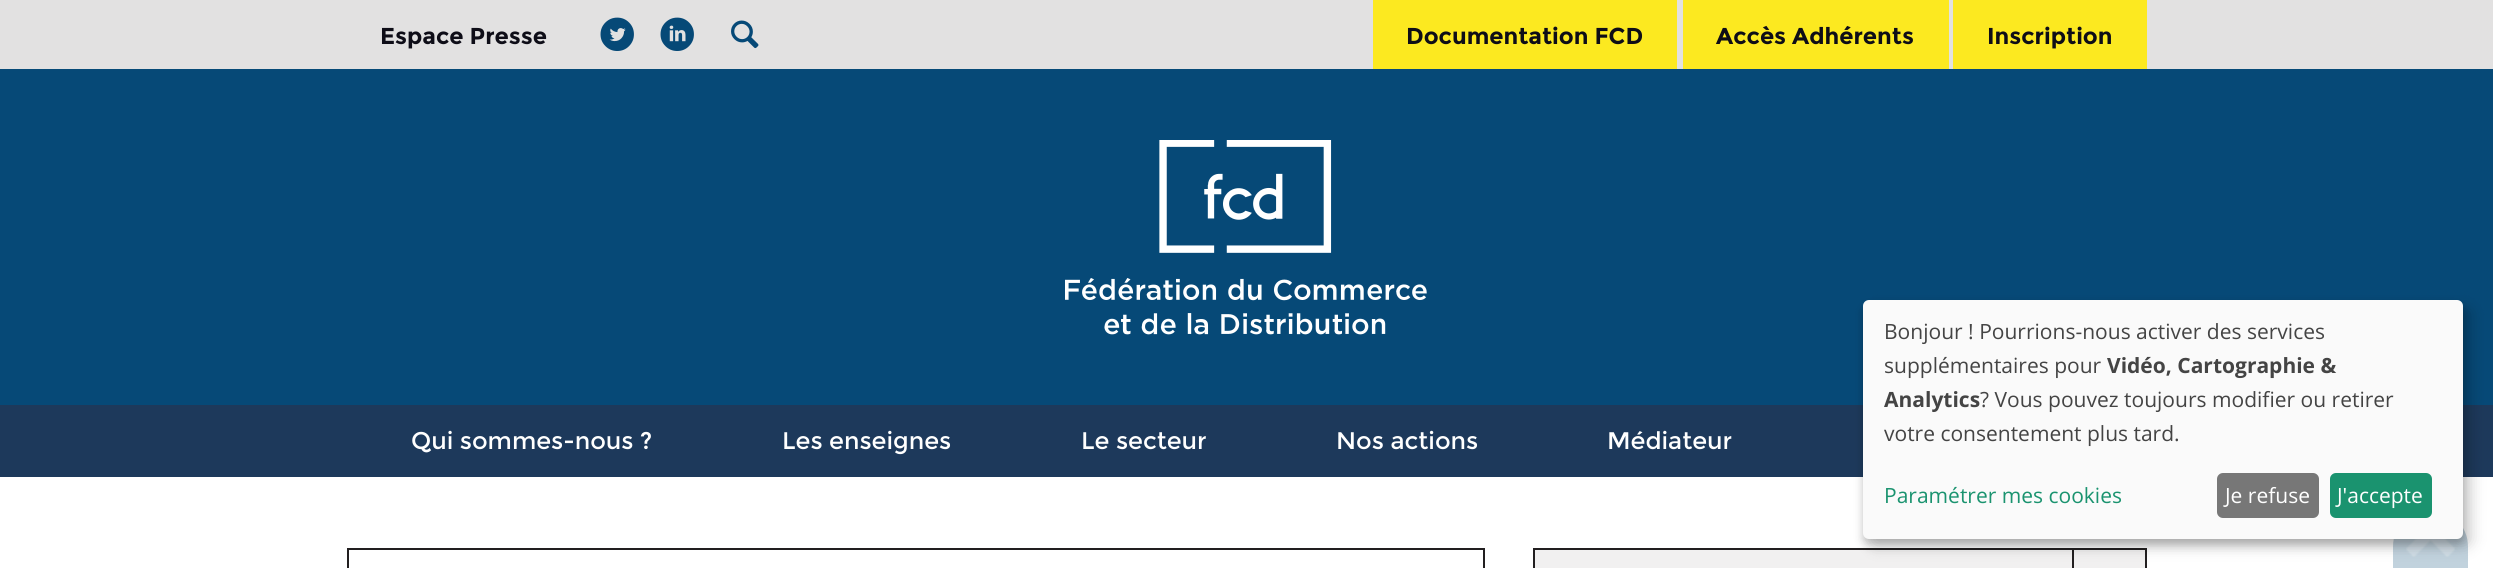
#include <cairo.h>
#include <math.h>
#include <stddef.h>


static void set_color(cairo_t *cr, unsigned color) {
    cairo_set_source_rgb(cr, (color >> 16) / 255.0, (color >> 8 & 255) / 255.0, (color & 255) / 255.0);
}

static void draw_text(cairo_t *cr, double x, double y, const char *s, const char *family, double size, int italic, int bold, unsigned color) {
    cairo_select_font_face(cr, family, italic ? CAIRO_FONT_SLANT_ITALIC : CAIRO_FONT_SLANT_NORMAL,
        bold ? CAIRO_FONT_WEIGHT_BOLD : CAIRO_FONT_WEIGHT_NORMAL);
    cairo_set_font_size(cr, size);
    set_color(cr, color);
    cairo_move_to(cr, x, y);
    cairo_show_text(cr, s);
}

static void fill_rect(cairo_t *cr, double x, double y, double w, double h, unsigned color) {
    set_color(cr, color);
    cairo_rectangle(cr, x, y, w, h);
    cairo_fill(cr);
}

static void rounded_rect(cairo_t *cr, double x, double y, double w, double h, double r) {
    cairo_new_sub_path(cr);
    cairo_arc(cr, x + w - r, y + h - r, r, 0, M_PI / 2);
    cairo_arc(cr, x + r, y + h - r, r, M_PI / 2, M_PI);
    cairo_arc(cr, x + r, y + r, r, M_PI, 1.5 * M_PI);
    cairo_arc(cr, x + w - r, y + r, r, 1.5 * M_PI, 2 * M_PI);
    cairo_close_path(cr);
}

static void draw_shadow(cairo_t *cr, double x, double y, double w, double h, double r, double blur, double alpha) {
    cairo_push_group_with_content(cr, CAIRO_CONTENT_ALPHA);
    cairo_set_operator(cr, CAIRO_OPERATOR_SOURCE);
    for (int i = 15; i >= -15 && fmin(w, h) + blur * i / 3 > 0; i -= 2) {
        double e = blur * i / 6;
        cairo_set_source_rgba(cr, 0, 0, 0, alpha * erfc((i - 1) / 8.5) / 2);
        rounded_rect(cr, x - e, y - e, w + 2 * e, h + 2 * e, fmax(0, fmin(r + e + blur * .6, fmin(w, h) / 2 + e)));
        cairo_fill(cr);
    }
    cairo_pattern_t *soft = cairo_pop_group(cr);
    cairo_mask(cr, soft);
    cairo_pattern_destroy(soft);
}

static void draw_image(cairo_t *cr, const char *path, double x, double y, double w, double h) {
    cairo_surface_t *image = cairo_image_surface_create_from_png(path);
    cairo_save(cr);
    cairo_set_source_surface(cr, image, x, y);
    cairo_rectangle(cr, x, y, w, h);
    cairo_fill(cr);
    cairo_restore(cr);
    cairo_surface_destroy(image);
}

int main(void) {
    cairo_surface_t *surface = cairo_image_surface_create(CAIRO_FORMAT_RGB24, 2493, 568);
    cairo_t *cr = cairo_create(surface);
    cairo_font_options_t *options = cairo_font_options_create();
    cairo_font_options_set_hint_metrics(options, CAIRO_HINT_METRICS_OFF);
    cairo_font_options_set_hint_style(options, CAIRO_HINT_STYLE_NONE);
    cairo_set_font_options(cr, options);
    cairo_set_miter_limit(cr, 4);
    set_color(cr, 0xFFFFFF);
    cairo_paint(cr);
    fill_rect(cr, 0, 0, 2493, 69, 0xE2E1E1);
    draw_text(cr, 380, 44, "Espace Presse", "Montserrat", 23, 0, 1, 0x0E0D17);
    draw_image(cr, "assets/img1.png", 600, 17, 34, 34);
    draw_image(cr, "assets/img2.png", 660, 17, 34, 34);
    draw_image(cr, "assets/img3.png", 731, 20, 28, 29);
    fill_rect(cr, 1373, 0, 304, 69, 0xFCE920);
    draw_text(cr, 1406, 44, "Documentation FCD", "Montserrat", 23, 0, 1, 0x0E0D17);
    fill_rect(cr, 1683, 0, 266, 69, 0xFCE920);
    draw_text(cr, 1716, 44, "Accès Adhérents", "Montserrat", 23, 0, 1, 0x0E0D17);
    fill_rect(cr, 1953, 0, 194, 69, 0xFCE920);
    draw_text(cr, 1987, 44, "Inscription", "Montserrat", 23, 0, 1, 0x0E0D17);
    fill_rect(cr, 0, 69, 2493, 336, 0x064977);
    draw_image(cr, "assets/img4.png", 1065, 140, 362, 195);
    fill_rect(cr, 0, 405, 2493, 72, 0x1D395B);
    draw_text(cr, 411, 449, "Qui sommes-nous ?", "Montserrat", 24, 0, 0, 0xFFFFFF);
    draw_text(cr, 782, 449, "Les enseignes", "Montserrat", 24, 0, 0, 0xFFFFFF);
    draw_text(cr, 1081, 449, "Le secteur", "Montserrat", 24, 0, 0, 0xFFFFFF);
    draw_text(cr, 1336, 449, "Nos actions", "Montserrat", 24, 0, 0, 0xFFFFFF);
    draw_text(cr, 1607, 449, "Médiateur", "Montserrat", 24, 0, 0, 0xFFFFFF);
    cairo_rectangle(cr, 348, 549, 1136, 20);
    set_color(cr, 0x221F20);
    cairo_stroke(cr);
    set_color(cr, 0xF1F0F0);
    cairo_rectangle(cr, 1534, 549, 612, 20);
    cairo_fill_preserve(cr);
    set_color(cr, 0x221F20);
    cairo_stroke(cr);
    fill_rect(cr, 2072, 549, 2, 19, 0x221F20);
    set_color(cr, 0xC1D2DD);
    cairo_new_path(cr);
    cairo_move_to(cr, 2430.5, 509);
    cairo_curve_to(cr, 2451, 509, 2468, 526, 2468, 546.5);
    cairo_line_to(cr, 2468, 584);
    cairo_line_to(cr, 2393, 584);
    cairo_line_to(cr, 2393, 546.5);
    cairo_curve_to(cr, 2393, 526, 2410, 509, 2430.5, 509);
    cairo_close_path(cr);
    cairo_fill(cr);
    draw_image(cr, "assets/img5.png", 2406, 539, 49, 18);
    set_color(cr, 0x000000);
    draw_shadow(cr, 1871, 308, 600, 238, 6, 7.5, 0.19);
    draw_shadow(cr, 1863, 306, 600, 239, 6, 4.5, 0.2);
    set_color(cr, 0xFAFAFA);
    rounded_rect(cr, 1863, 300, 600, 239, 6);
    cairo_fill(cr);
    draw_text(cr, 1884, 339, "Bonjour ! Pourrions-nous activer des services", "Open Sans", 21, 0, 0, 0x444444);
    draw_text(cr, 1884, 373, "supplémentaires pour", "Open Sans", 21, 0, 0, 0x444444);
    draw_text(cr, 2107, 373, "Vidéo, Cartographie &", "Open Sans", 21, 0, 1, 0x444444);
    draw_text(cr, 1884, 407, "Analytics", "Open Sans", 21, 0, 1, 0x444444);
    draw_text(cr, 1980, 407, "? Vous pouvez toujours modifier ou retirer", "Open Sans", 21, 0, 0, 0x444444);
    draw_text(cr, 1884, 441, "votre consentement plus tard.", "Open Sans", 21, 0, 0, 0x444444);
    draw_text(cr, 1884, 503, "Paramétrer mes cookies", "Open Sans", 21, 0, 0, 0x1A936F);
    set_color(cr, 0x777777);
    rounded_rect(cr, 2217, 473, 102, 45, 6);
    cairo_fill(cr);
    draw_text(cr, 2225, 503, "Je refuse", "Open Sans", 21, 0, 0, 0xFFFFFF);
    set_color(cr, 0x1A936F);
    rounded_rect(cr, 2330, 473, 102, 45, 6);
    cairo_fill(cr);
    draw_text(cr, 2337, 503, "J'accepte", "Open Sans", 21, 0, 0, 0xFFFFFF);
    cairo_surface_write_to_png(surface, "output.png");
    cairo_font_options_destroy(options);
    cairo_destroy(cr);
    cairo_surface_destroy(surface);
    return 0;
}
